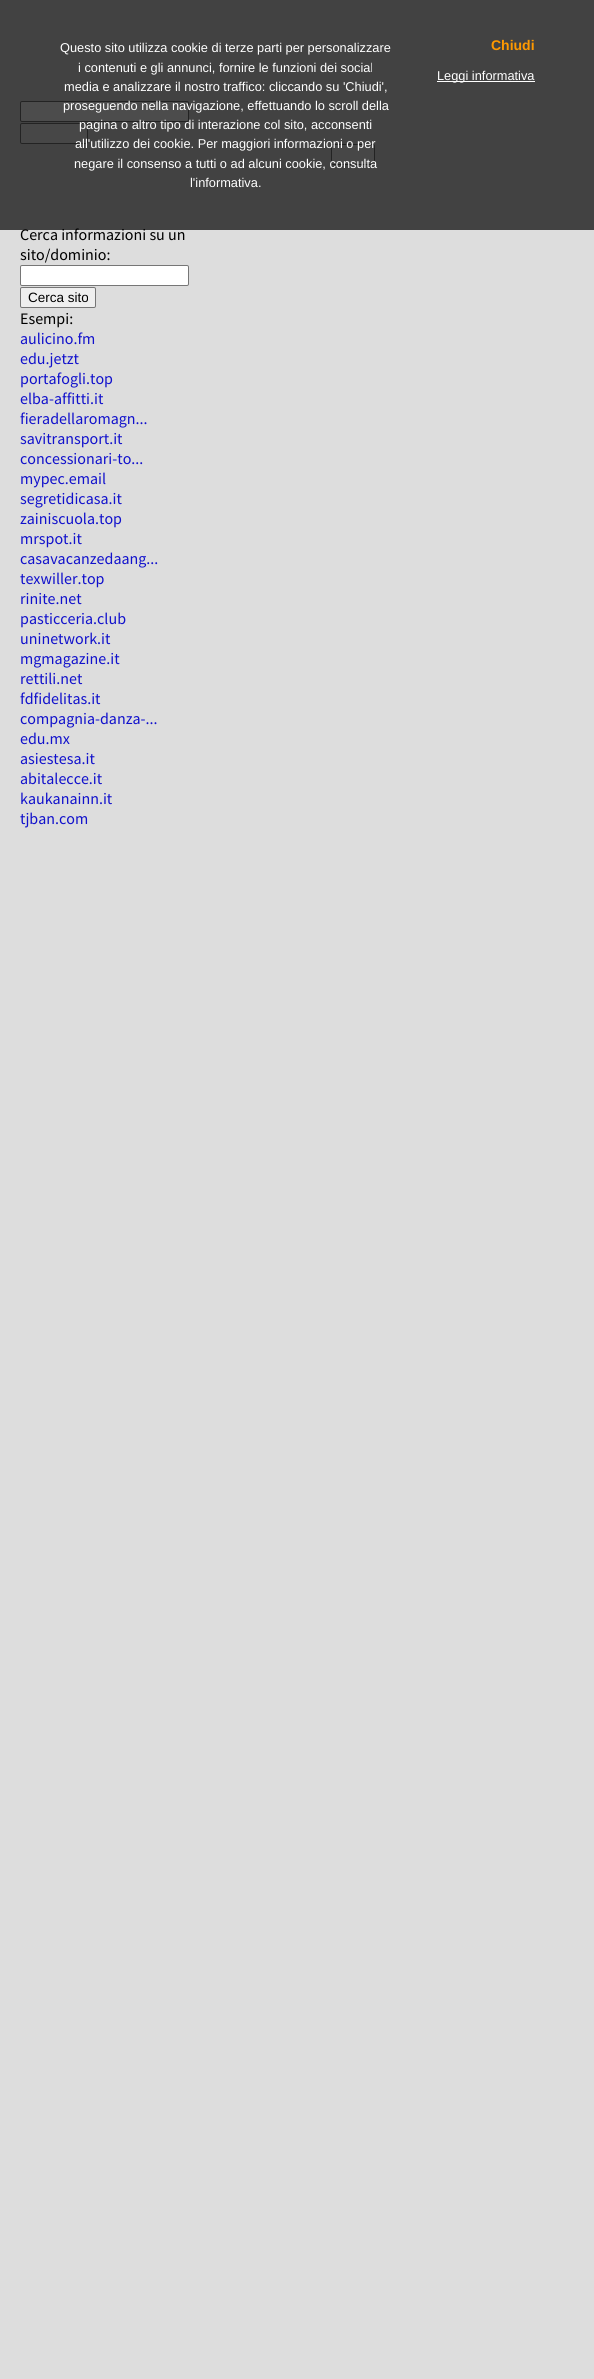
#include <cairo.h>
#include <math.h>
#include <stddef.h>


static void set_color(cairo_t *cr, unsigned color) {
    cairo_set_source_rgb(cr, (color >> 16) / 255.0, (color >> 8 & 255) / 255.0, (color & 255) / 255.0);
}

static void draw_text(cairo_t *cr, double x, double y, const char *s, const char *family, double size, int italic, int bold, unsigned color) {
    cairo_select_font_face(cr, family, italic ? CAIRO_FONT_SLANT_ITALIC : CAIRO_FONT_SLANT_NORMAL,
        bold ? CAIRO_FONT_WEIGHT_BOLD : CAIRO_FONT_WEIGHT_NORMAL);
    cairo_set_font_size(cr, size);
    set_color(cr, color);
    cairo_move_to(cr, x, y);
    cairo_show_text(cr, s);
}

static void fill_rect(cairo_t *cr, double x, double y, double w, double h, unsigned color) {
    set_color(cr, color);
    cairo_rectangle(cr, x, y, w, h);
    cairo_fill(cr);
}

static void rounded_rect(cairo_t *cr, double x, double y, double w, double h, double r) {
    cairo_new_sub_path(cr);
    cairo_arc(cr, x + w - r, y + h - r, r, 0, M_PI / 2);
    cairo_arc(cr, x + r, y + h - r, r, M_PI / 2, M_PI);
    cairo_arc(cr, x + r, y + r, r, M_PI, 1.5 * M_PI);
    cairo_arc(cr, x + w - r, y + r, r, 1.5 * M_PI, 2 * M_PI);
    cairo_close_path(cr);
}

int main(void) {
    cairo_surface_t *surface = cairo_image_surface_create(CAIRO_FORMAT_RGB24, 594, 2379);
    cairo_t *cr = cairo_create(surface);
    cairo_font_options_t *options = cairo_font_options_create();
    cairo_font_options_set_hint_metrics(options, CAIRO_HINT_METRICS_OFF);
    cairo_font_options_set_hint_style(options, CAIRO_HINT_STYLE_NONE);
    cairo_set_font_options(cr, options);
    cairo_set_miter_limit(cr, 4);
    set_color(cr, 0xDDDDDD);
    cairo_paint(cr);
    set_color(cr, 0xEFEFEF);
    rounded_rect(cr, 331.5, 144.5, 43, 20, 1.5);
    cairo_fill_preserve(cr);
    set_color(cr, 0x767676);
    cairo_set_line_width(cr, 1);
    cairo_stroke(cr);
    set_color(cr, 0xFFFFFF);
    rounded_rect(cr, 20.5, 101.5, 168, 20, 1.5);
    cairo_fill_preserve(cr);
    set_color(cr, 0x767676);
    cairo_stroke(cr);
    set_color(cr, 0xEFEFEF);
    rounded_rect(cr, 20.5, 123.5, 67, 20, 1.5);
    cairo_fill_preserve(cr);
    set_color(cr, 0x767676);
    cairo_stroke(cr);
    draw_text(cr, 20, 240, "Cerca informazioni su un", "Source Sans Pro", 16, 0, 0, 0x000000);
    cairo_set_source_rgba(cr, 0, 0, 0, 0.7);
    cairo_rectangle(cr, 0, 0, 594, 230);
    cairo_fill(cr);
    draw_text(cr, 60, 52, "Questo sito utilizza cookie di terze parti per personalizzare", "Liberation Sans", 12.8, 0, 0, 0xFFFFFF);
    draw_text(cr, 78, 72, "i contenuti e gli annunci, fornire le funzioni dei social", "Liberation Sans", 12.8, 0, 0, 0xFFFFFF);
    draw_text(cr, 64, 91, "media e analizzare il nostro traffico: cliccando su 'Chiudi',", "Liberation Sans", 12.8, 0, 0, 0xFFFFFF);
    draw_text(cr, 63, 110, "proseguendo nella navigazione, effettuando lo scroll della", "Liberation Sans", 12.8, 0, 0, 0xFFFFFF);
    draw_text(cr, 79, 129, "pagina o altro tipo di interazione col sito, acconsenti", "Liberation Sans", 12.8, 0, 0, 0xFFFFFF);
    draw_text(cr, 75, 148, "all'utilizzo dei cookie. Per maggiori informazioni o per", "Liberation Sans", 12.8, 0, 0, 0xFFFFFF);
    draw_text(cr, 74, 168, "negare il consenso a tutti o ad alcuni cookie, consulta", "Liberation Sans", 12.8, 0, 0, 0xFFFFFF);
    draw_text(cr, 190, 187, "l'informativa.", "Liberation Sans", 12.8, 0, 0, 0xFFFFFF);
    draw_text(cr, 491, 50, "Chiudi", "Liberation Sans", 14, 0, 1, 0xFF9900);
    fill_rect(cr, 437, 81, 98, 1, 0xFFFFFF);
    draw_text(cr, 437, 80, "Leggi informativa", "Liberation Sans", 12.8, 0, 0, 0xFFFFFF);
    draw_text(cr, 20, 260, "sito/dominio:", "Source Sans Pro", 16, 0, 0, 0x000000);
    set_color(cr, 0xFFFFFF);
    rounded_rect(cr, 20.5, 265.5, 168, 20, 1.5);
    cairo_fill_preserve(cr);
    set_color(cr, 0x767676);
    cairo_stroke(cr);
    set_color(cr, 0xEFEFEF);
    rounded_rect(cr, 20.5, 287.5, 75, 20, 1.5);
    cairo_fill_preserve(cr);
    set_color(cr, 0x767676);
    cairo_stroke(cr);
    draw_text(cr, 28, 302, "Cerca sito", "Liberation Sans", 13.5, 0, 0, 0x000000);
    draw_text(cr, 20, 324, "Esempi:", "Source Sans Pro", 16, 0, 0, 0x000000);
    draw_text(cr, 20, 344, "aulicino.fm", "Source Sans Pro", 16, 0, 0, 0x1111CC);
    draw_text(cr, 20, 364, "edu.jetzt", "Source Sans Pro", 16, 0, 0, 0x1111CC);
    draw_text(cr, 20, 384, "portafogli.top", "Source Sans Pro", 16, 0, 0, 0x1111CC);
    draw_text(cr, 20, 404, "elba-affitti.it", "Source Sans Pro", 16, 0, 0, 0x1111CC);
    draw_text(cr, 20, 424, "fieradellaromagn...", "Source Sans Pro", 16, 0, 0, 0x1111CC);
    draw_text(cr, 20, 444, "savitransport.it", "Source Sans Pro", 16, 0, 0, 0x1111CC);
    draw_text(cr, 20, 464, "concessionari-to...", "Source Sans Pro", 16, 0, 0, 0x1111CC);
    draw_text(cr, 20, 484, "mypec.email", "Source Sans Pro", 16, 0, 0, 0x1111CC);
    draw_text(cr, 20, 504, "segretidicasa.it", "Source Sans Pro", 16, 0, 0, 0x1111CC);
    draw_text(cr, 20, 524, "zainiscuola.top", "Source Sans Pro", 16, 0, 0, 0x1111CC);
    draw_text(cr, 20, 544, "mrspot.it", "Source Sans Pro", 16, 0, 0, 0x1111CC);
    draw_text(cr, 20, 564, "casavacanzedaang...", "Source Sans Pro", 16, 0, 0, 0x1111CC);
    draw_text(cr, 20, 584, "texwiller.top", "Source Sans Pro", 16, 0, 0, 0x1111CC);
    draw_text(cr, 20, 604, "rinite.net", "Source Sans Pro", 16, 0, 0, 0x1111CC);
    draw_text(cr, 20, 624, "pasticceria.club", "Source Sans Pro", 16, 0, 0, 0x1111CC);
    draw_text(cr, 20, 644, "uninetwork.it", "Source Sans Pro", 16, 0, 0, 0x1111CC);
    draw_text(cr, 20, 664, "mgmagazine.it", "Source Sans Pro", 16, 0, 0, 0x1111CC);
    draw_text(cr, 20, 684, "rettili.net", "Source Sans Pro", 16, 0, 0, 0x1111CC);
    draw_text(cr, 20, 704, "fdfidelitas.it", "Source Sans Pro", 16, 0, 0, 0x1111CC);
    draw_text(cr, 20, 724, "compagnia-danza-...", "Source Sans Pro", 16, 0, 0, 0x1111CC);
    draw_text(cr, 20, 744, "edu.mx", "Source Sans Pro", 16, 0, 0, 0x1111CC);
    draw_text(cr, 20, 764, "asiestesa.it", "Source Sans Pro", 16, 0, 0, 0x1111CC);
    draw_text(cr, 20, 784, "abitalecce.it", "Source Sans Pro", 16, 0, 0, 0x1111CC);
    draw_text(cr, 20, 804, "kaukanainn.it", "Source Sans Pro", 16, 0, 0, 0x1111CC);
    draw_text(cr, 20, 824, "tjban.com", "Source Sans Pro", 16, 0, 0, 0x1111CC);
    cairo_surface_write_to_png(surface, "output.png");
    cairo_font_options_destroy(options);
    cairo_destroy(cr);
    cairo_surface_destroy(surface);
    return 0;
}
